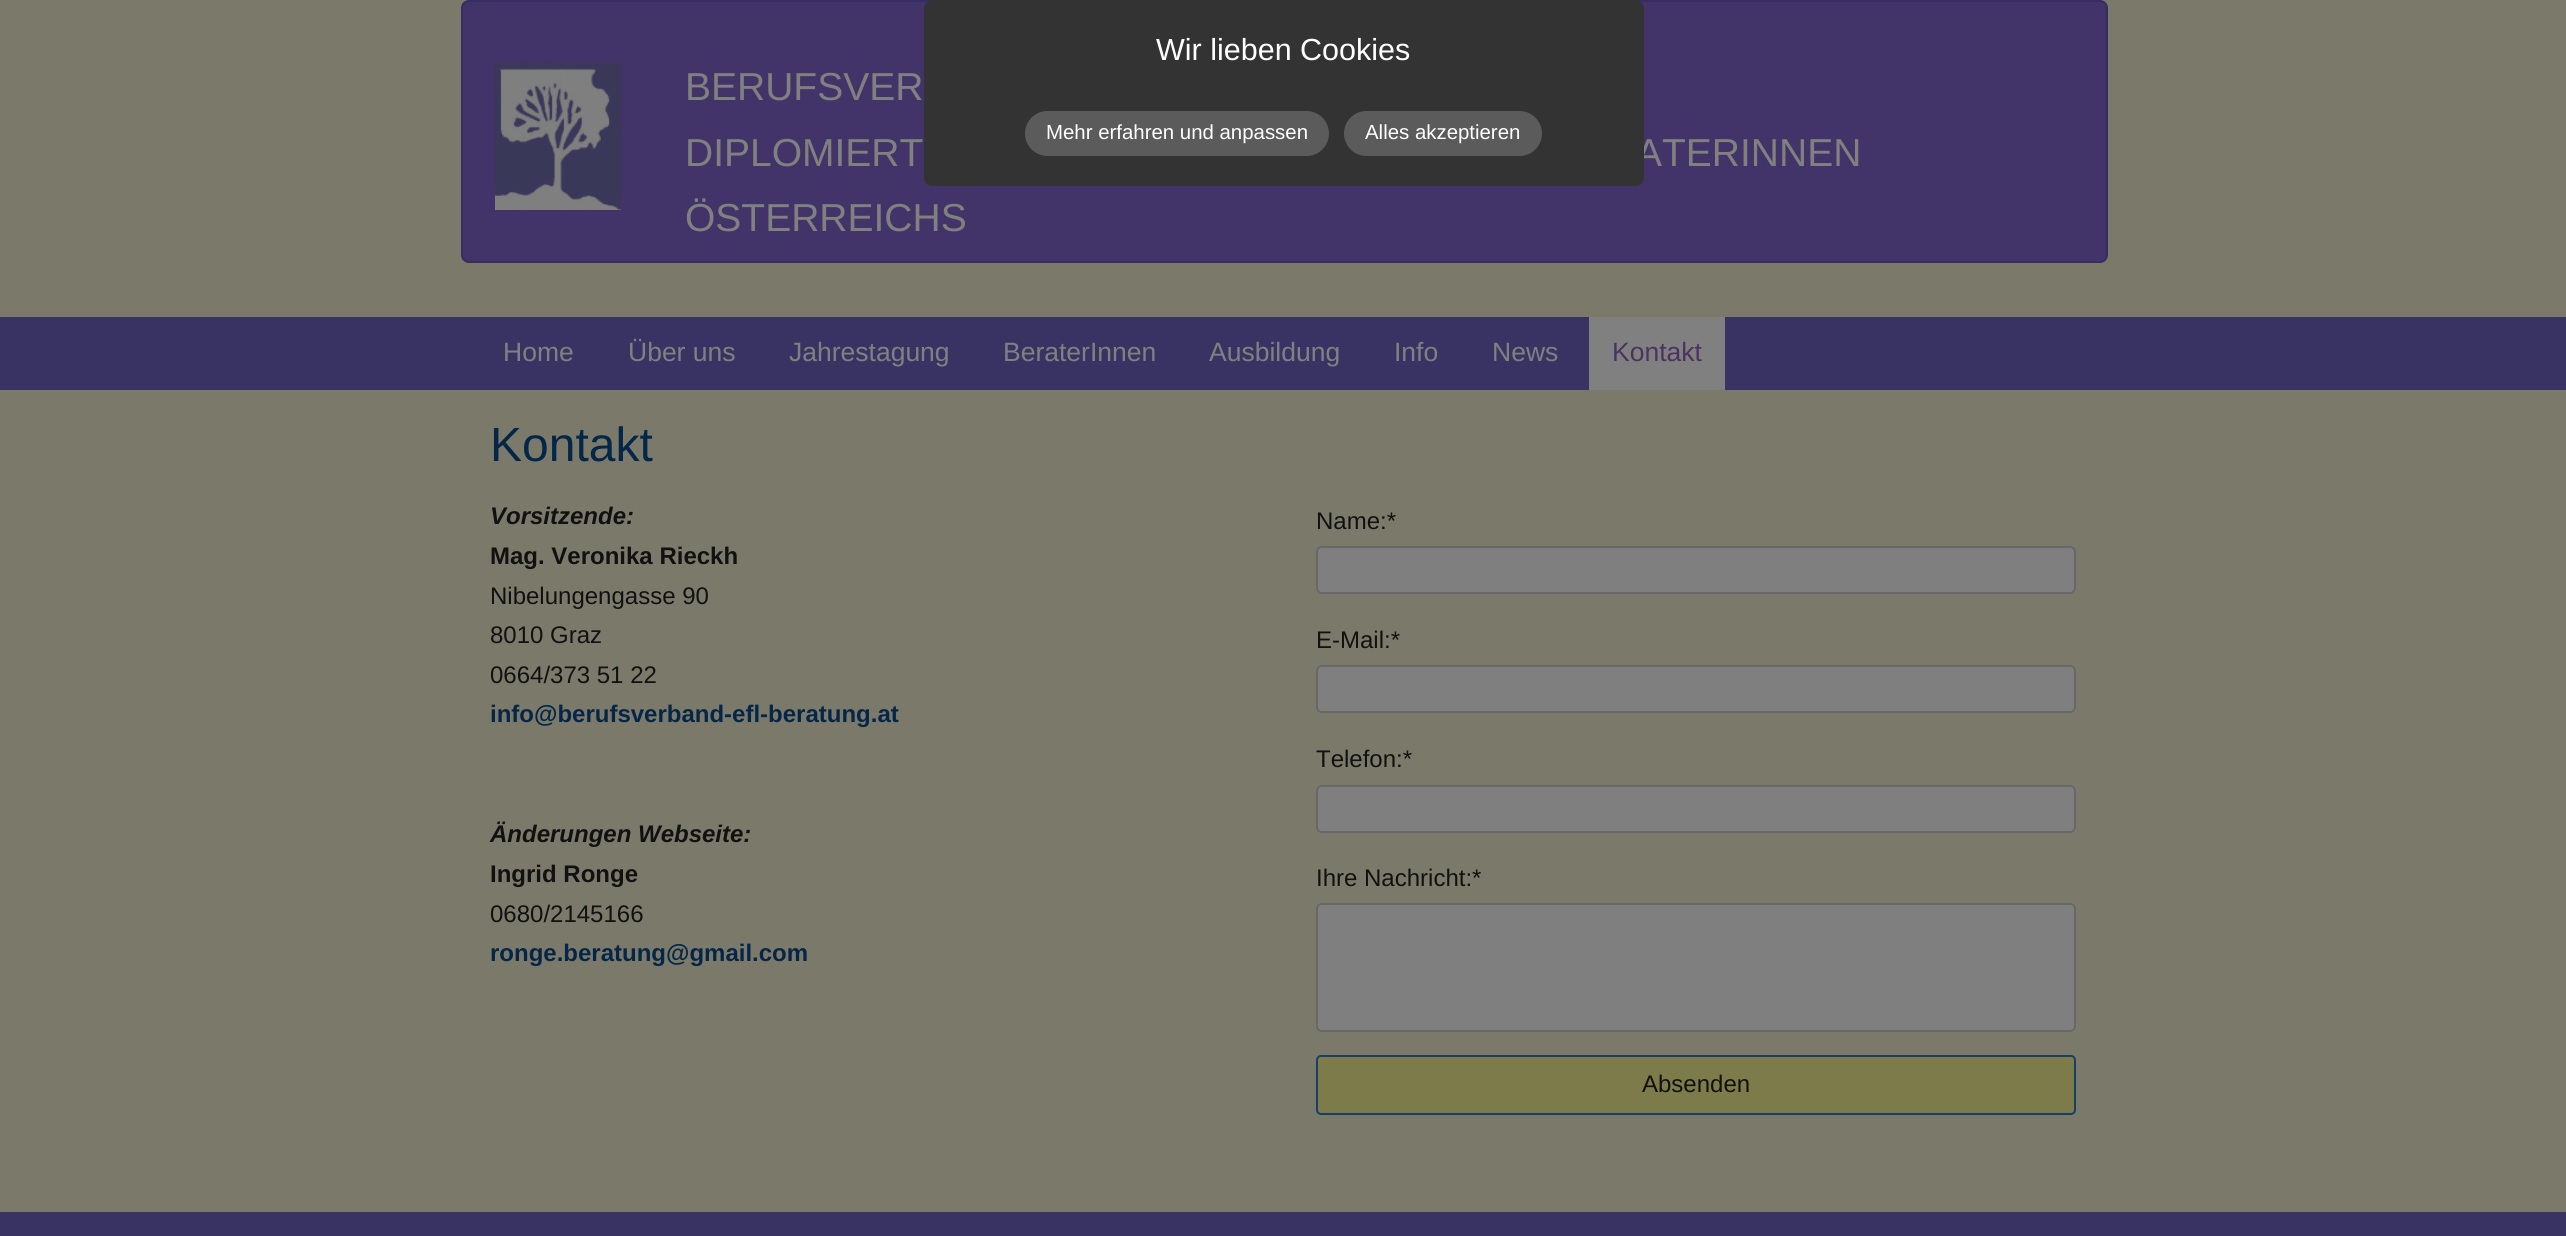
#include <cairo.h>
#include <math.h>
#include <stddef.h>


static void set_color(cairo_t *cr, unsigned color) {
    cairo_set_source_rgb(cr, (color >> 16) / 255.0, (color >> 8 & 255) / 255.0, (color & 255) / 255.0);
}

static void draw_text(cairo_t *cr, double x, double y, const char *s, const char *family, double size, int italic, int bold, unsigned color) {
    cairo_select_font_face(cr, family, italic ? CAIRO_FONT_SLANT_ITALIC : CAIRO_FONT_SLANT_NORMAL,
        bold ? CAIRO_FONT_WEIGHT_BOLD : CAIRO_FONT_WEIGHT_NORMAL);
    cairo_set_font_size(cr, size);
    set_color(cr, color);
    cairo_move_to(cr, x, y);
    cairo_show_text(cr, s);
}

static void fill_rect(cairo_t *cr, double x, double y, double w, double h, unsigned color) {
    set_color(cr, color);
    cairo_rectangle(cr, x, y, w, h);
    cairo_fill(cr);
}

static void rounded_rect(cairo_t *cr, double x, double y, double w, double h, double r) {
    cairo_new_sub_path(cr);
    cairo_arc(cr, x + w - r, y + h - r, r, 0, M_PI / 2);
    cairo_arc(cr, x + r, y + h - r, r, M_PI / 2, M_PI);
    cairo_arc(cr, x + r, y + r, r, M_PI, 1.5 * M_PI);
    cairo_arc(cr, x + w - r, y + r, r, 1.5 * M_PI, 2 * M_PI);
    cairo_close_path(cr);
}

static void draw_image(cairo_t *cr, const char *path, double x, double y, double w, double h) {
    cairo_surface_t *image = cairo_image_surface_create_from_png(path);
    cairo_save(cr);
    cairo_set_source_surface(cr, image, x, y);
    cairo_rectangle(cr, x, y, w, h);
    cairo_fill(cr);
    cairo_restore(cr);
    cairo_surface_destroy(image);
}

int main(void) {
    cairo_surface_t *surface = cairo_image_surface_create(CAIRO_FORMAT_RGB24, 2566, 1236);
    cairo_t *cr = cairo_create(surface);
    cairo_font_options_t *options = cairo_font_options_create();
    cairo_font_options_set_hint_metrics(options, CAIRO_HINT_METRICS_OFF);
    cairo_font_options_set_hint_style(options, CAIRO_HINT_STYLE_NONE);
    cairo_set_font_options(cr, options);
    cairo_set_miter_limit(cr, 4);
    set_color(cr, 0x7B7A6A);
    cairo_paint(cr);
    set_color(cr, 0x423468);
    rounded_rect(cr, 462, 1, 1645, 261, 7);
    cairo_fill_preserve(cr);
    set_color(cr, 0x352D64);
    cairo_stroke(cr);
    draw_text(cr, 1636, 166, "ATERINNEN", "Liberation Sans", 39, 0, 0, 0x808080);
    set_color(cr, 0x333333);
    rounded_rect(cr, 924, 0, 720, 186, 8);
    cairo_fill(cr);
    draw_text(cr, 1156, 60, "Wir lieben Cookies", "Liberation Sans", 30.5, 0, 0, 0xFFFFFF);
    set_color(cr, 0x5B5B5B);
    rounded_rect(cr, 1025, 111, 304, 45, 22.5);
    cairo_fill(cr);
    draw_text(cr, 1046, 139, "Mehr erfahren und anpassen", "Liberation Sans", 20.4, 0, 0, 0xFFFFFF);
    set_color(cr, 0x5B5B5B);
    rounded_rect(cr, 1344, 111, 198, 45, 22.5);
    cairo_fill(cr);
    draw_text(cr, 1365, 139, "Alles akzeptieren", "Liberation Sans", 20.4, 0, 0, 0xFFFFFF);
    draw_image(cr, "assets/img1.png", 495, 63, 126, 147);
    draw_text(cr, 685, 100, "BERUFSVER", "Liberation Sans", 39, 0, 0, 0x808080);
    draw_text(cr, 685, 166, "DIPLOMIERT", "Liberation Sans", 39, 0, 0, 0x808080);
    draw_text(cr, 685, 231, "ÖSTERREICHS", "Liberation Sans", 39, 0, 0, 0x808080);
    fill_rect(cr, 0, 317, 2566, 73, 0x393364);
    draw_text(cr, 503, 361, "Home", "Liberation Sans", 26.5, 0, 0, 0x808080);
    draw_text(cr, 628, 361, "Über uns", "Liberation Sans", 26.5, 0, 0, 0x808080);
    draw_text(cr, 789, 361, "Jahrestagung", "Liberation Sans", 26.5, 0, 0, 0x808080);
    draw_text(cr, 1003, 361, "BeraterInnen", "Liberation Sans", 26.5, 0, 0, 0x808080);
    draw_text(cr, 1209, 361, "Ausbildung", "Liberation Sans", 26.5, 0, 0, 0x808080);
    draw_text(cr, 1394, 361, "Info", "Liberation Sans", 26.5, 0, 0, 0x808080);
    draw_text(cr, 1492, 361, "News", "Liberation Sans", 26.5, 0, 0, 0x808080);
    fill_rect(cr, 1589, 317, 136, 73, 0x808080);
    draw_text(cr, 1612, 361, "Kontakt", "Liberation Sans", 26.5, 0, 0, 0x4B325F);
    draw_text(cr, 490, 461, "Kontakt", "Liberation Sans", 48, 0, 0, 0x052648);
    draw_text(cr, 490, 524, "Vorsitzende:", "Liberation Sans", 24, 1, 1, 0x111111);
    draw_text(cr, 490, 564, "Mag. Veronika Rieckh", "Liberation Sans", 24, 0, 1, 0x111111);
    draw_text(cr, 490, 604, "Nibelungengasse 90", "Liberation Sans", 24, 0, 0, 0x111111);
    draw_text(cr, 490, 643, "8010 Graz", "Liberation Sans", 24, 0, 0, 0x111111);
    draw_text(cr, 490, 683, "0664/373 51 22", "Liberation Sans", 24, 0, 0, 0x111111);
    draw_text(cr, 490, 722, "info@berufsverband-efl-beratung.at", "Liberation Sans", 24, 0, 1, 0x052648);
    draw_text(cr, 490, 842, "Änderungen Webseite:", "Liberation Sans", 24, 1, 1, 0x111111);
    draw_text(cr, 490, 882, "Ingrid Ronge", "Liberation Sans", 24, 0, 1, 0x111111);
    draw_text(cr, 490, 922, "0680/2145166", "Liberation Sans", 24, 0, 0, 0x111111);
    draw_text(cr, 490, 961, "ronge.beratung@gmail.com", "Liberation Sans", 24, 0, 1, 0x052648);
    draw_text(cr, 1316, 529, "Name:*", "Liberation Sans", 24, 0, 0, 0x111111);
    set_color(cr, 0x7F7F7F);
    rounded_rect(cr, 1317, 547, 758, 46, 5);
    cairo_fill_preserve(cr);
    set_color(cr, 0x686868);
    cairo_stroke(cr);
    draw_text(cr, 1316, 648, "E-Mail:*", "Liberation Sans", 24, 0, 0, 0x111111);
    set_color(cr, 0x7F7F7F);
    rounded_rect(cr, 1317, 666, 758, 46, 5);
    cairo_fill_preserve(cr);
    set_color(cr, 0x686868);
    cairo_stroke(cr);
    draw_text(cr, 1316, 767, "Telefon:*", "Liberation Sans", 24, 0, 0, 0x111111);
    set_color(cr, 0x7F7F7F);
    rounded_rect(cr, 1317, 786, 758, 46, 5);
    cairo_fill_preserve(cr);
    set_color(cr, 0x686868);
    cairo_stroke(cr);
    draw_text(cr, 1316, 886, "Ihre Nachricht:*", "Liberation Sans", 24, 0, 0, 0x111111);
    set_color(cr, 0x7F7F7F);
    rounded_rect(cr, 1317, 904, 758, 127, 5);
    cairo_fill_preserve(cr);
    set_color(cr, 0x686868);
    cairo_stroke(cr);
    set_color(cr, 0x7C7B49);
    rounded_rect(cr, 1317, 1056, 758, 58, 4);
    cairo_fill_preserve(cr);
    set_color(cr, 0x173F69);
    cairo_stroke(cr);
    draw_text(cr, 1642, 1092, "Absenden", "Liberation Sans", 24, 0, 0, 0x111111);
    fill_rect(cr, 0, 1212, 2566, 24, 0x393364);
    cairo_surface_write_to_png(surface, "output.png");
    cairo_font_options_destroy(options);
    cairo_destroy(cr);
    cairo_surface_destroy(surface);
    return 0;
}
